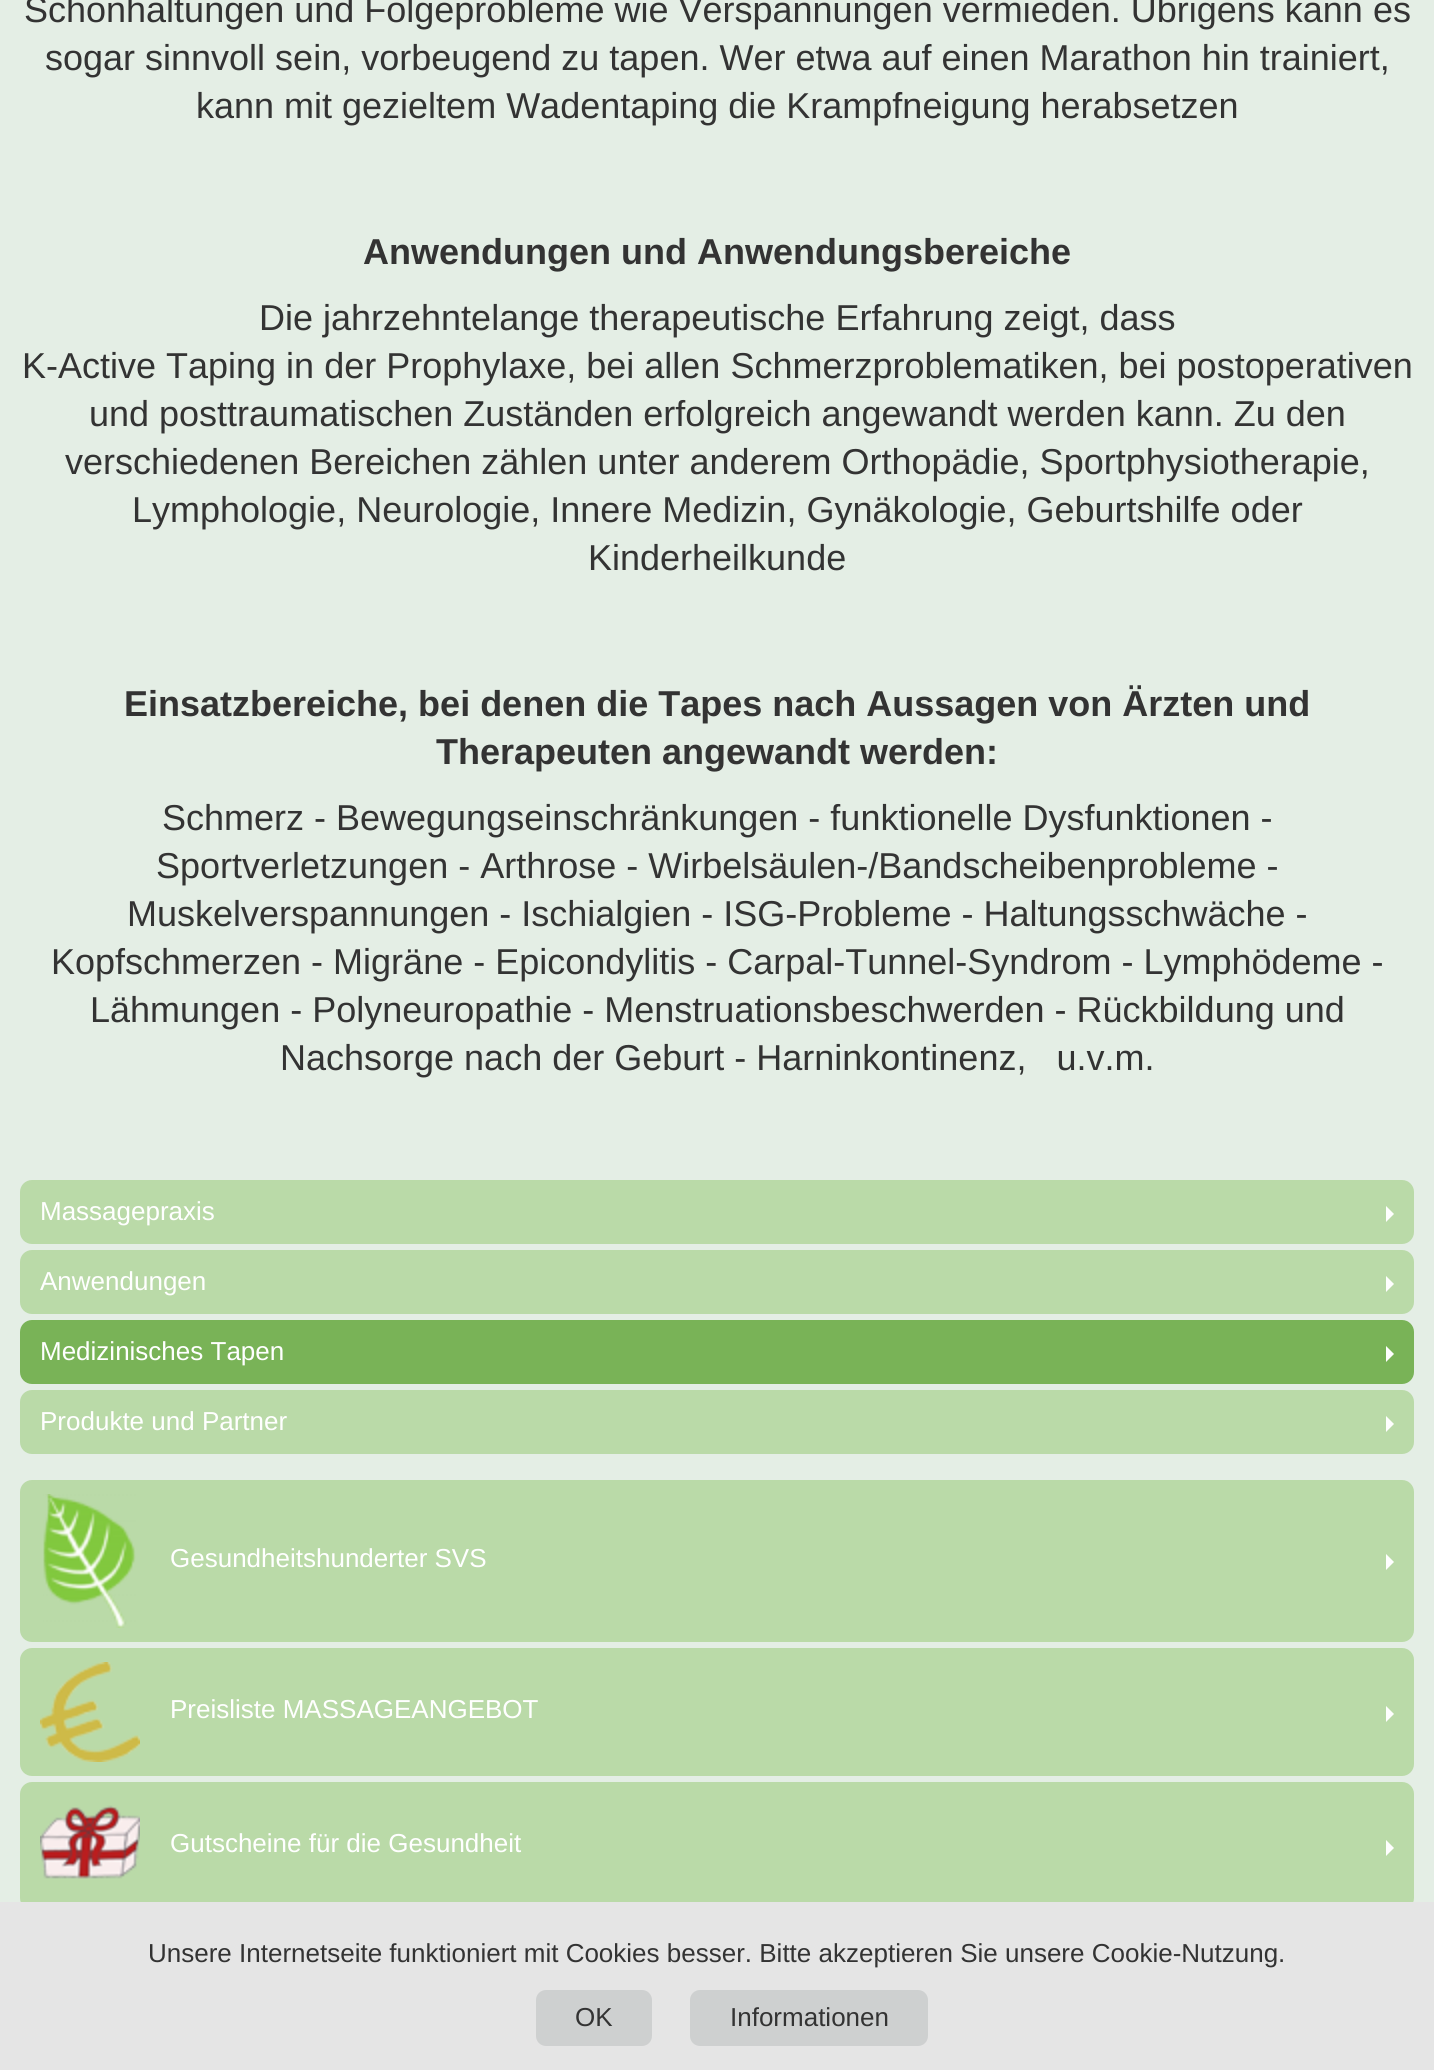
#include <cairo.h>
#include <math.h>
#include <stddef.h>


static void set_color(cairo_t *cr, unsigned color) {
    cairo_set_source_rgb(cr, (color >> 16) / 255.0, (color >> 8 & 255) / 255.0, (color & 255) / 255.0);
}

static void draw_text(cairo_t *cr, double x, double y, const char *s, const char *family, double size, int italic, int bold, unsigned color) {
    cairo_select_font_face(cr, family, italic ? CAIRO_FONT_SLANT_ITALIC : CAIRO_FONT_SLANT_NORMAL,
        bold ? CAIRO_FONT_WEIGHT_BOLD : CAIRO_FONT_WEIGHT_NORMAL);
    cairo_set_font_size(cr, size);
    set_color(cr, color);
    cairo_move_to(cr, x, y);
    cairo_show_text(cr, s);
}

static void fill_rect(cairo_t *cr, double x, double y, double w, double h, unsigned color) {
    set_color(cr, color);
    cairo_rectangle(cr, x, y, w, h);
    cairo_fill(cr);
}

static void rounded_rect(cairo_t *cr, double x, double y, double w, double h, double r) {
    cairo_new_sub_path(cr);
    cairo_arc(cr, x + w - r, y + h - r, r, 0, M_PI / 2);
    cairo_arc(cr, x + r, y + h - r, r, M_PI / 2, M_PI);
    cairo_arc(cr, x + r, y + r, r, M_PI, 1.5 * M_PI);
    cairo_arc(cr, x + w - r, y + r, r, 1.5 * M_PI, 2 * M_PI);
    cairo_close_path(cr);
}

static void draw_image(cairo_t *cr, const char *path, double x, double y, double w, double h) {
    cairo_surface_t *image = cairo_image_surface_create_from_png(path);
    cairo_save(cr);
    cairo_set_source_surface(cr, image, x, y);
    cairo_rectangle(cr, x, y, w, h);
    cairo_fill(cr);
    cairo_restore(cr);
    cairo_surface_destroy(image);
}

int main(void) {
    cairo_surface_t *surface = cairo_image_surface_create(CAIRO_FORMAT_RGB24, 1434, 2070);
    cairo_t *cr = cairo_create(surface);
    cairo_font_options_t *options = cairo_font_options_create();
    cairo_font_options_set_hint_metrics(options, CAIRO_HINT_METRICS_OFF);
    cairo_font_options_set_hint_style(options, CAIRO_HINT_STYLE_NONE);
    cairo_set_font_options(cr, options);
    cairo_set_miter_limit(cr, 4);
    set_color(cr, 0xE4EEE5);
    cairo_paint(cr);
    draw_text(cr, 24, 22, "Schonhaltungen und Folgeprobleme wie Verspannungen vermieden. Übrigens kann es", "Liberation Sans", 36, 0, 0, 0x333333);
    draw_text(cr, 45, 70, "sogar sinnvoll sein, vorbeugend zu tapen. Wer etwa auf einen Marathon hin trainiert,", "Liberation Sans", 36, 0, 0, 0x333333);
    draw_text(cr, 196, 118, "kann mit gezieltem Wadentaping die Krampfneigung herabsetzen", "Liberation Sans", 36, 0, 0, 0x333333);
    draw_text(cr, 363, 264, "Anwendungen und Anwendungsbereiche", "Liberation Sans", 36, 0, 1, 0x333333);
    draw_text(cr, 259, 330, "Die jahrzehntelange therapeutische Erfahrung zeigt, dass", "Liberation Sans", 36, 0, 0, 0x333333);
    draw_text(cr, 22, 378, "K-Active Taping in der Prophylaxe, bei allen Schmerzproblematiken, bei postoperativen", "Liberation Sans", 36, 0, 0, 0x333333);
    draw_text(cr, 89, 426, "und posttraumatischen Zuständen erfolgreich angewandt werden kann. Zu den", "Liberation Sans", 36, 0, 0, 0x333333);
    draw_text(cr, 65, 474, "verschiedenen Bereichen zählen unter anderem Orthopädie, Sportphysiotherapie,", "Liberation Sans", 36, 0, 0, 0x333333);
    draw_text(cr, 132, 522, "Lymphologie, Neurologie, Innere Medizin, Gynäkologie, Geburtshilfe oder", "Liberation Sans", 36, 0, 0, 0x333333);
    draw_text(cr, 588, 570, "Kinderheilkunde", "Liberation Sans", 36, 0, 0, 0x333333);
    draw_text(cr, 124, 716, "Einsatzbereiche, bei denen die Tapes nach Aussagen von Ärzten und", "Liberation Sans", 36, 0, 1, 0x333333);
    draw_text(cr, 436, 764, "Therapeuten angewandt werden:", "Liberation Sans", 36, 0, 1, 0x333333);
    draw_text(cr, 162, 830, "Schmerz - Bewegungseinschränkungen - funktionelle Dysfunktionen -", "Liberation Sans", 36, 0, 0, 0x333333);
    draw_text(cr, 156, 878, "Sportverletzungen - Arthrose - Wirbelsäulen-/Bandscheibenprobleme -", "Liberation Sans", 36, 0, 0, 0x333333);
    draw_text(cr, 127, 926, "Muskelverspannungen - Ischialgien - ISG-Probleme - Haltungsschwäche -", "Liberation Sans", 36, 0, 0, 0x333333);
    draw_text(cr, 51, 974, "Kopfschmerzen - Migräne - Epicondylitis - Carpal-Tunnel-Syndrom - Lymphödeme -", "Liberation Sans", 36, 0, 0, 0x333333);
    draw_text(cr, 90, 1022, "Lähmungen - Polyneuropathie - Menstruationsbeschwerden - Rückbildung und", "Liberation Sans", 36, 0, 0, 0x333333);
    draw_text(cr, 280, 1070, "Nachsorge nach der Geburt - Harninkontinenz,   u.v.m.", "Liberation Sans", 36, 0, 0, 0x333333);
    set_color(cr, 0xBADAA8);
    rounded_rect(cr, 20, 1180, 1394, 64, 12);
    cairo_fill(cr);
    draw_text(cr, 40, 1220, "Massagepraxis", "Liberation Sans", 26, 0, 0, 0xFFFFFF);
    cairo_new_path(cr);
    cairo_move_to(cr, 1386, 1222);
    cairo_line_to(cr, 1386, 1206);
    cairo_line_to(cr, 1394, 1214);
    cairo_close_path(cr);
    cairo_fill(cr);
    set_color(cr, 0xBADAA8);
    rounded_rect(cr, 20, 1250, 1394, 64, 12);
    cairo_fill(cr);
    draw_text(cr, 40, 1290, "Anwendungen", "Liberation Sans", 26, 0, 0, 0xFFFFFF);
    cairo_new_path(cr);
    cairo_move_to(cr, 1386, 1292);
    cairo_line_to(cr, 1386, 1276);
    cairo_line_to(cr, 1394, 1284);
    cairo_close_path(cr);
    cairo_fill(cr);
    set_color(cr, 0x79B357);
    rounded_rect(cr, 20, 1320, 1394, 64, 12);
    cairo_fill(cr);
    draw_text(cr, 40, 1360, "Medizinisches Tapen", "Liberation Sans", 26, 0, 0, 0xFFFFFF);
    cairo_new_path(cr);
    cairo_move_to(cr, 1386, 1362);
    cairo_line_to(cr, 1386, 1346);
    cairo_line_to(cr, 1394, 1354);
    cairo_close_path(cr);
    cairo_fill(cr);
    set_color(cr, 0xBADAA8);
    rounded_rect(cr, 20, 1390, 1394, 64, 12);
    cairo_fill(cr);
    draw_text(cr, 40, 1430, "Produkte und Partner", "Liberation Sans", 26, 0, 0, 0xFFFFFF);
    cairo_new_path(cr);
    cairo_move_to(cr, 1386, 1432);
    cairo_line_to(cr, 1386, 1416);
    cairo_line_to(cr, 1394, 1424);
    cairo_close_path(cr);
    cairo_fill(cr);
    set_color(cr, 0xBADAA8);
    rounded_rect(cr, 20, 1480, 1394, 162, 12);
    cairo_fill(cr);
    draw_image(cr, "assets/img1.png", 43, 1494, 93, 134);
    draw_text(cr, 170, 1567, "Gesundheitshunderter SVS", "Liberation Sans", 26, 0, 0, 0xFFFFFF);
    cairo_new_path(cr);
    cairo_move_to(cr, 1386, 1570);
    cairo_line_to(cr, 1386, 1554);
    cairo_line_to(cr, 1394, 1562);
    cairo_close_path(cr);
    cairo_fill(cr);
    set_color(cr, 0xBADAA8);
    rounded_rect(cr, 20, 1648, 1394, 128, 12);
    cairo_fill(cr);
    draw_image(cr, "assets/img2.png", 40, 1662, 100, 100);
    draw_text(cr, 170, 1718, "Preisliste MASSAGEANGEBOT", "Liberation Sans", 26, 0, 0, 0xFFFFFF);
    cairo_new_path(cr);
    cairo_move_to(cr, 1386, 1722);
    cairo_line_to(cr, 1386, 1706);
    cairo_line_to(cr, 1394, 1714);
    cairo_close_path(cr);
    cairo_fill(cr);
    set_color(cr, 0xBADAA8);
    rounded_rect(cr, 20, 1782, 1394, 128, 12);
    cairo_fill(cr);
    draw_image(cr, "assets/img3.png", 40, 1805, 100, 74);
    draw_text(cr, 170, 1852, "Gutscheine für die Gesundheit", "Liberation Sans", 26, 0, 0, 0xFFFFFF);
    cairo_new_path(cr);
    cairo_move_to(cr, 1386, 1856);
    cairo_line_to(cr, 1386, 1840);
    cairo_line_to(cr, 1394, 1848);
    cairo_close_path(cr);
    cairo_fill(cr);
    fill_rect(cr, 0, 1902, 1434, 168, 0xE5E5E5);
    draw_text(cr, 148, 1962, "Unsere Internetseite funktioniert mit Cookies besser. Bitte akzeptieren Sie unsere Cookie-Nutzung.", "Liberation Sans", 26, 0, 0, 0x333333);
    set_color(cr, 0xCED0D0);
    rounded_rect(cr, 536, 1990, 116, 56, 10);
    cairo_fill(cr);
    draw_text(cr, 575, 2026, "OK", "Liberation Sans", 26, 0, 0, 0x333333);
    set_color(cr, 0xCED0D0);
    rounded_rect(cr, 690, 1990, 238, 56, 10);
    cairo_fill(cr);
    draw_text(cr, 730, 2026, "Informationen", "Liberation Sans", 26, 0, 0, 0x333333);
    cairo_surface_write_to_png(surface, "output.png");
    cairo_font_options_destroy(options);
    cairo_destroy(cr);
    cairo_surface_destroy(surface);
    return 0;
}
